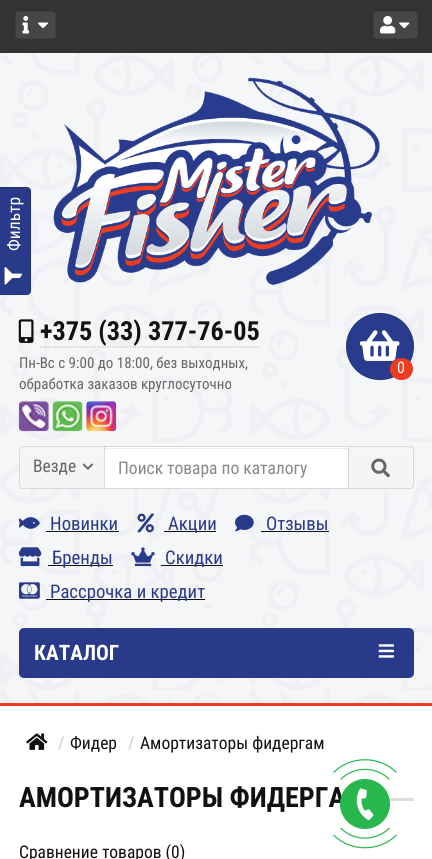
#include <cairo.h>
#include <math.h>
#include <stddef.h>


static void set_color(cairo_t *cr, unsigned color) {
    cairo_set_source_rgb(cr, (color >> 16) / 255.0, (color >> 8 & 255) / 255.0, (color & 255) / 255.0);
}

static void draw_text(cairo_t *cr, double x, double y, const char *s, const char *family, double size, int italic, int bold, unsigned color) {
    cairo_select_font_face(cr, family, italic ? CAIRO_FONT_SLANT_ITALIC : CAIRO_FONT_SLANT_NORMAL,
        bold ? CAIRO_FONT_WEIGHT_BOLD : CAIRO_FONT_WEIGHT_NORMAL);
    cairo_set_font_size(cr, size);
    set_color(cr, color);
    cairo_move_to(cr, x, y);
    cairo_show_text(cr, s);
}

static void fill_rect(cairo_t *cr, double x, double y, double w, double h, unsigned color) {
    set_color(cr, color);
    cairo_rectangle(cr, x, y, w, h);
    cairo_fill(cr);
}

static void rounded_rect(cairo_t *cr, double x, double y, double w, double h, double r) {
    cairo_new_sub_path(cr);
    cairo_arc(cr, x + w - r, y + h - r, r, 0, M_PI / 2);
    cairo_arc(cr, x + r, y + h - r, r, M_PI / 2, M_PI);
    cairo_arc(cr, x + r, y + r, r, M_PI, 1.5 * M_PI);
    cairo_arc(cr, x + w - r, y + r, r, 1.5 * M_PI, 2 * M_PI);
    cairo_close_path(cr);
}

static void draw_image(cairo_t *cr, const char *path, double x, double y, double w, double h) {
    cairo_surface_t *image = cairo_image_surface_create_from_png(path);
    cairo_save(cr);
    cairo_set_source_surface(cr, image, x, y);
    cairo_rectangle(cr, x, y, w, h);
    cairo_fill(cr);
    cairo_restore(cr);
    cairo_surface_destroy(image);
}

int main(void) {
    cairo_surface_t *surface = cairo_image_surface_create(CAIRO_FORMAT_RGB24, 432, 859);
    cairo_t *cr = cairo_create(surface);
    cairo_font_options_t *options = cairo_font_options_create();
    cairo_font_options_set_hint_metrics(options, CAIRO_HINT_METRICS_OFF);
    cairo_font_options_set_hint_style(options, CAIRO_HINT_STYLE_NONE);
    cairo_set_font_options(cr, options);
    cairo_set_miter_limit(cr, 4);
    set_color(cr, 0xFFFFFF);
    cairo_paint(cr);
    fill_rect(cr, 0, 0, 432, 53, 0x333333);
    set_color(cr, 0x474747);
    rounded_rect(cr, 15, 11, 41, 28, 4);
    cairo_fill(cr);
    rounded_rect(cr, 15.5, 11.5, 40, 27, 3.5);
    cairo_set_source_rgba(cr, 0, 0, 0, 0.12);
    cairo_set_line_width(cr, 1);
    cairo_stroke(cr);
    draw_image(cr, "assets/img1.png", 22, 16, 8, 18);
    draw_image(cr, "assets/img2.png", 37, 22, 11, 7);
    set_color(cr, 0x474747);
    rounded_rect(cr, 373, 11, 45, 28, 4);
    cairo_fill(cr);
    rounded_rect(cr, 373.5, 11.5, 44, 27, 3.5);
    cairo_set_source_rgba(cr, 0, 0, 0, 0.12);
    cairo_stroke(cr);
    draw_image(cr, "assets/img3.png", 380, 15, 16, 19);
    draw_image(cr, "assets/img4.png", 399, 22, 11, 7);
    draw_image(cr, "assets/img6.png", 0, 53, 432, 650);
    set_color(cr, 0x293A8A);
    cairo_new_path(cr);
    cairo_move_to(cr, -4, 291);
    cairo_line_to(cr, -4, 191);
    cairo_curve_to(cr, -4, 189, -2, 187, 0, 187);
    cairo_line_to(cr, 27, 187);
    cairo_curve_to(cr, 29, 187, 31, 189, 31, 191);
    cairo_line_to(cr, 31, 291);
    cairo_curve_to(cr, 31, 293, 29, 295, 27, 295);
    cairo_line_to(cr, 0, 295);
    cairo_curve_to(cr, -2, 295, -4, 293, -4, 291);
    cairo_close_path(cr);
    cairo_fill(cr);
    cairo_new_path(cr);
    cairo_move_to(cr, -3.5, 291.5);
    cairo_line_to(cr, -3.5, 191);
    cairo_curve_to(cr, -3.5, 189, -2, 187.5, -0.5, 187.5);
    cairo_line_to(cr, 27, 187.5);
    cairo_curve_to(cr, 29, 187.5, 30.5, 189, 30.5, 191);
    cairo_line_to(cr, 30.5, 291.5);
    cairo_curve_to(cr, 30.5, 293, 29, 294.5, 27, 294.5);
    cairo_line_to(cr, -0.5, 294.5);
    cairo_curve_to(cr, -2, 294.5, -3.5, 293, -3.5, 291.5);
    cairo_close_path(cr);
    cairo_set_source_rgba(cr, 0, 0, 0, 0.12);
    cairo_set_line_width(cr, 1.2);
    cairo_stroke(cr);
    cairo_save(cr);
    cairo_translate(cr, 20, 251);
    cairo_rotate(cr, -90 * M_PI / 180);
    draw_text(cr, 0, 0, "Фильтр", "Roboto Condensed", 17.5, 0, 0, 0xFFFFFF);
    cairo_restore(cr);
    draw_image(cr, "assets/img5.png", 4, 267, 18, 18);
    fill_rect(cr, 0, 703, 432, 3, 0xEE3D20);
    draw_image(cr, "assets/img7.png", 53, 77, 327, 208);
    draw_image(cr, "assets/img8.png", 18, 319, 16, 24);
    draw_text(cr, 40, 340, "+375 (33) 377-76-05", "Roboto Condensed", 26.25, 0, 1, 0x111111);
    cairo_new_path(cr);
    cairo_move_to(cr, 40, 347);
    cairo_line_to(cr, 259, 347);
    cairo_set_source_rgba(cr, 0, 0, 0, 0.2);
    cairo_set_dash(cr, (double[]){1.25, 1.25}, 2, 0);
    cairo_stroke(cr);
    draw_text(cr, 19, 368, "Пн-Вс с 9:00 до 18:00, без выходных,", "Roboto Condensed", 15, 0, 0, 0x666666);
    draw_text(cr, 19, 389, "обработка заказов круглосуточно", "Roboto Condensed", 15, 0, 0, 0x666666);
    draw_image(cr, "assets/img9.png", 18, 401, 31, 31);
    draw_image(cr, "assets/img10.png", 52, 401, 31, 31);
    draw_image(cr, "assets/img11.png", 86, 401, 31, 31);
    set_color(cr, 0x293B8C);
    rounded_rect(cr, 346, 313, 68, 67, 33.5);
    cairo_fill(cr);
    rounded_rect(cr, 346.5, 313.5, 67, 66, 33);
    cairo_set_source_rgba(cr, 0, 0, 0, 0.12);
    cairo_set_line_width(cr, 1);
    cairo_set_dash(cr, NULL, 0, 0);
    cairo_stroke(cr);
    draw_image(cr, "assets/img12.png", 360, 330, 40, 31);
    set_color(cr, 0xED3D21);
    rounded_rect(cr, 390, 358, 23, 22, 11);
    cairo_fill(cr);
    draw_text(cr, 397, 373, "0", "Roboto Condensed", 16, 0, 0, 0xFFFFFF);
    set_color(cr, 0xF5F5F5);
    cairo_new_path(cr);
    cairo_move_to(cr, 23, 446);
    cairo_line_to(cr, 106, 446);
    cairo_line_to(cr, 106, 489);
    cairo_line_to(cr, 23, 489);
    cairo_curve_to(cr, 21, 489, 19, 487, 19, 485);
    cairo_line_to(cr, 19, 450);
    cairo_curve_to(cr, 19, 448, 21, 446, 23, 446);
    cairo_close_path(cr);
    cairo_fill(cr);
    set_color(cr, 0xF8F8F8);
    cairo_new_path(cr);
    cairo_move_to(cr, 22, 449);
    cairo_line_to(cr, 105, 449);
    cairo_line_to(cr, 105, 448);
    cairo_line_to(cr, 22, 448);
    cairo_curve_to(cr, 21, 448, 20, 449, 20, 450);
    cairo_line_to(cr, 20, 451);
    cairo_curve_to(cr, 20, 450, 21, 449, 22, 449);
    cairo_close_path(cr);
    cairo_fill(cr);
    cairo_new_path(cr);
    cairo_move_to(cr, 23, 446.5);
    cairo_line_to(cr, 105.5, 446.5);
    cairo_line_to(cr, 105.5, 488.5);
    cairo_line_to(cr, 23, 488.5);
    cairo_curve_to(cr, 21, 488.5, 19.5, 487, 19.5, 485);
    cairo_line_to(cr, 19.5, 450);
    cairo_curve_to(cr, 19.5, 448, 21, 446.5, 23, 446.5);
    cairo_close_path(cr);
    set_color(cr, 0xD8D8D8);
    cairo_stroke(cr);
    draw_text(cr, 33, 472, "Везде", "Roboto Condensed", 17.5, 0, 0, 0x666666);
    draw_image(cr, "assets/img13.png", 82, 463, 11, 7);
    fill_rect(cr, 105, 447, 243, 41, 0xFFFFFF);
    fill_rect(cr, 105, 448, 243, 1, 0xECECEC);
    cairo_rectangle(cr, 104.5, 446.5, 244, 42);
    set_color(cr, 0xD9D9D9);
    cairo_stroke(cr);
    draw_text(cr, 118, 474, "Поиск товара по каталогу", "Roboto Condensed", 17.5, 0, 0, 0x888888);
    set_color(cr, 0xF5F5F5);
    cairo_new_path(cr);
    cairo_move_to(cr, 348, 446);
    cairo_line_to(cr, 410, 446);
    cairo_curve_to(cr, 412, 446, 414, 448, 414, 450);
    cairo_line_to(cr, 414, 485);
    cairo_curve_to(cr, 414, 487, 412, 489, 410, 489);
    cairo_line_to(cr, 348, 489);
    cairo_close_path(cr);
    cairo_fill(cr);
    set_color(cr, 0xF8F8F8);
    cairo_new_path(cr);
    cairo_move_to(cr, 349, 449);
    cairo_line_to(cr, 410, 449);
    cairo_curve_to(cr, 413, 449, 412, 456, 412, 457);
    cairo_line_to(cr, 412, 488);
    cairo_curve_to(cr, 412, 487, 413, 486, 413, 486);
    cairo_line_to(cr, 413, 450);
    cairo_curve_to(cr, 413, 449, 412, 448, 410, 448);
    cairo_line_to(cr, 349, 448);
    cairo_close_path(cr);
    cairo_fill(cr);
    cairo_new_path(cr);
    cairo_move_to(cr, 348.5, 446.5);
    cairo_line_to(cr, 410, 446.5);
    cairo_curve_to(cr, 412, 446.5, 413.5, 448, 413.5, 450);
    cairo_line_to(cr, 413.5, 485);
    cairo_curve_to(cr, 413.5, 487, 412, 488.5, 410, 488.5);
    cairo_line_to(cr, 348.5, 488.5);
    cairo_close_path(cr);
    set_color(cr, 0xD8D8D8);
    cairo_stroke(cr);
    draw_image(cr, "assets/img14.png", 371, 458, 19, 20);
    draw_image(cr, "assets/img15.png", 19, 517, 21, 12);
    draw_text(cr, 50, 530, "Новинки", "Roboto Condensed", 18.75, 0, 0, 0x293A8A);
    fill_rect(cr, 46, 531, 73, 1, 0x111111);
    draw_image(cr, "assets/img16.png", 137, 513, 17, 20);
    fill_rect(cr, 164, 531, 52, 1, 0x111111);
    draw_text(cr, 168, 530, "Акции", "Roboto Condensed", 18.75, 0, 0, 0x293A8A);
    draw_image(cr, "assets/img17.png", 235, 514, 19, 18);
    draw_text(cr, 266, 530, "Отзывы", "Roboto Condensed", 18.75, 0, 0, 0x293A8A);
    fill_rect(cr, 261, 531, 68, 1, 0x111111);
    draw_image(cr, "assets/img18.png", 19, 547, 23, 20);
    fill_rect(cr, 48, 565, 65, 1, 0x111111);
    draw_text(cr, 52, 564, "Бренды", "Roboto Condensed", 18.75, 0, 0, 0x293A8A);
    draw_image(cr, "assets/img19.png", 131, 547, 24, 20);
    fill_rect(cr, 161, 565, 62, 1, 0x111111);
    draw_text(cr, 165, 564, "Скидки", "Roboto Condensed", 18.75, 0, 0, 0x293A8A);
    draw_image(cr, "assets/img20.png", 19, 582, 21, 17);
    fill_rect(cr, 46, 599, 159, 1, 0x111111);
    draw_text(cr, 50, 598, "Рассрочка и кредит", "Roboto Condensed", 18.75, 0, 0, 0x293A8A);
    rounded_rect(cr, 19, 628, 395, 50, 5);
    cairo_fill(cr);
    draw_text(cr, 34, 660, "КАТАЛОГ", "Roboto Condensed", 21.25, 0, 1, 0xFFFFFF);
    draw_image(cr, "assets/img21.png", 378, 644, 17, 14);
    draw_image(cr, "assets/img22.png", 26, 733, 22, 17);
    draw_text(cr, 58, 749, "/", "Roboto Condensed", 17.5, 0, 0, 0xCCCCCC);
    draw_text(cr, 70, 749, "Фидер", "Roboto Condensed", 17.5, 0, 0, 0x111111);
    draw_text(cr, 128, 749, "/", "Roboto Condensed", 17.5, 0, 0, 0xCCCCCC);
    draw_text(cr, 140, 749, "Амортизаторы фидергам", "Roboto Condensed", 17.5, 0, 0, 0x111111);
    draw_text(cr, 19, 807, "АМОРТИЗАТОРЫ ФИДЕРГА", "Roboto Condensed", 28, 0, 1, 0x111111);
    fill_rect(cr, 385, 798, 29, 3, 0xDCDCDC);
    draw_text(cr, 19, 858, "Сравнение товаров (0)", "Roboto Condensed", 17.5, 0, 0, 0x111111);
    set_color(cr, 0x28B74D);
    cairo_new_path(cr);
    cairo_arc(cr, 365, 804, 25, 0, 2 * M_PI);
    cairo_fill(cr);
    cairo_new_path(cr);
    cairo_move_to(cr, 340.5, 779.5);
    cairo_curve_to(cr, 354, 766, 376, 766, 389.5, 779.5);
    cairo_set_line_width(cr, 1.2);
    cairo_stroke(cr);
    cairo_new_path(cr);
    cairo_move_to(cr, 333.5, 772.5);
    cairo_curve_to(cr, 350.5, 755.5, 379.5, 755.5, 396.5, 772.5);
    cairo_stroke(cr);
    cairo_new_path(cr);
    cairo_move_to(cr, 389.5, 828);
    cairo_curve_to(cr, 376, 841.5, 354, 841.5, 340.5, 828);
    cairo_stroke(cr);
    cairo_new_path(cr);
    cairo_move_to(cr, 396.5, 835);
    cairo_curve_to(cr, 379.5, 852, 350.5, 852, 333.5, 835);
    cairo_stroke(cr);
    draw_image(cr, "assets/img23.png", 356, 788, 18, 33);
    cairo_surface_write_to_png(surface, "output.png");
    cairo_font_options_destroy(options);
    cairo_destroy(cr);
    cairo_surface_destroy(surface);
    return 0;
}
